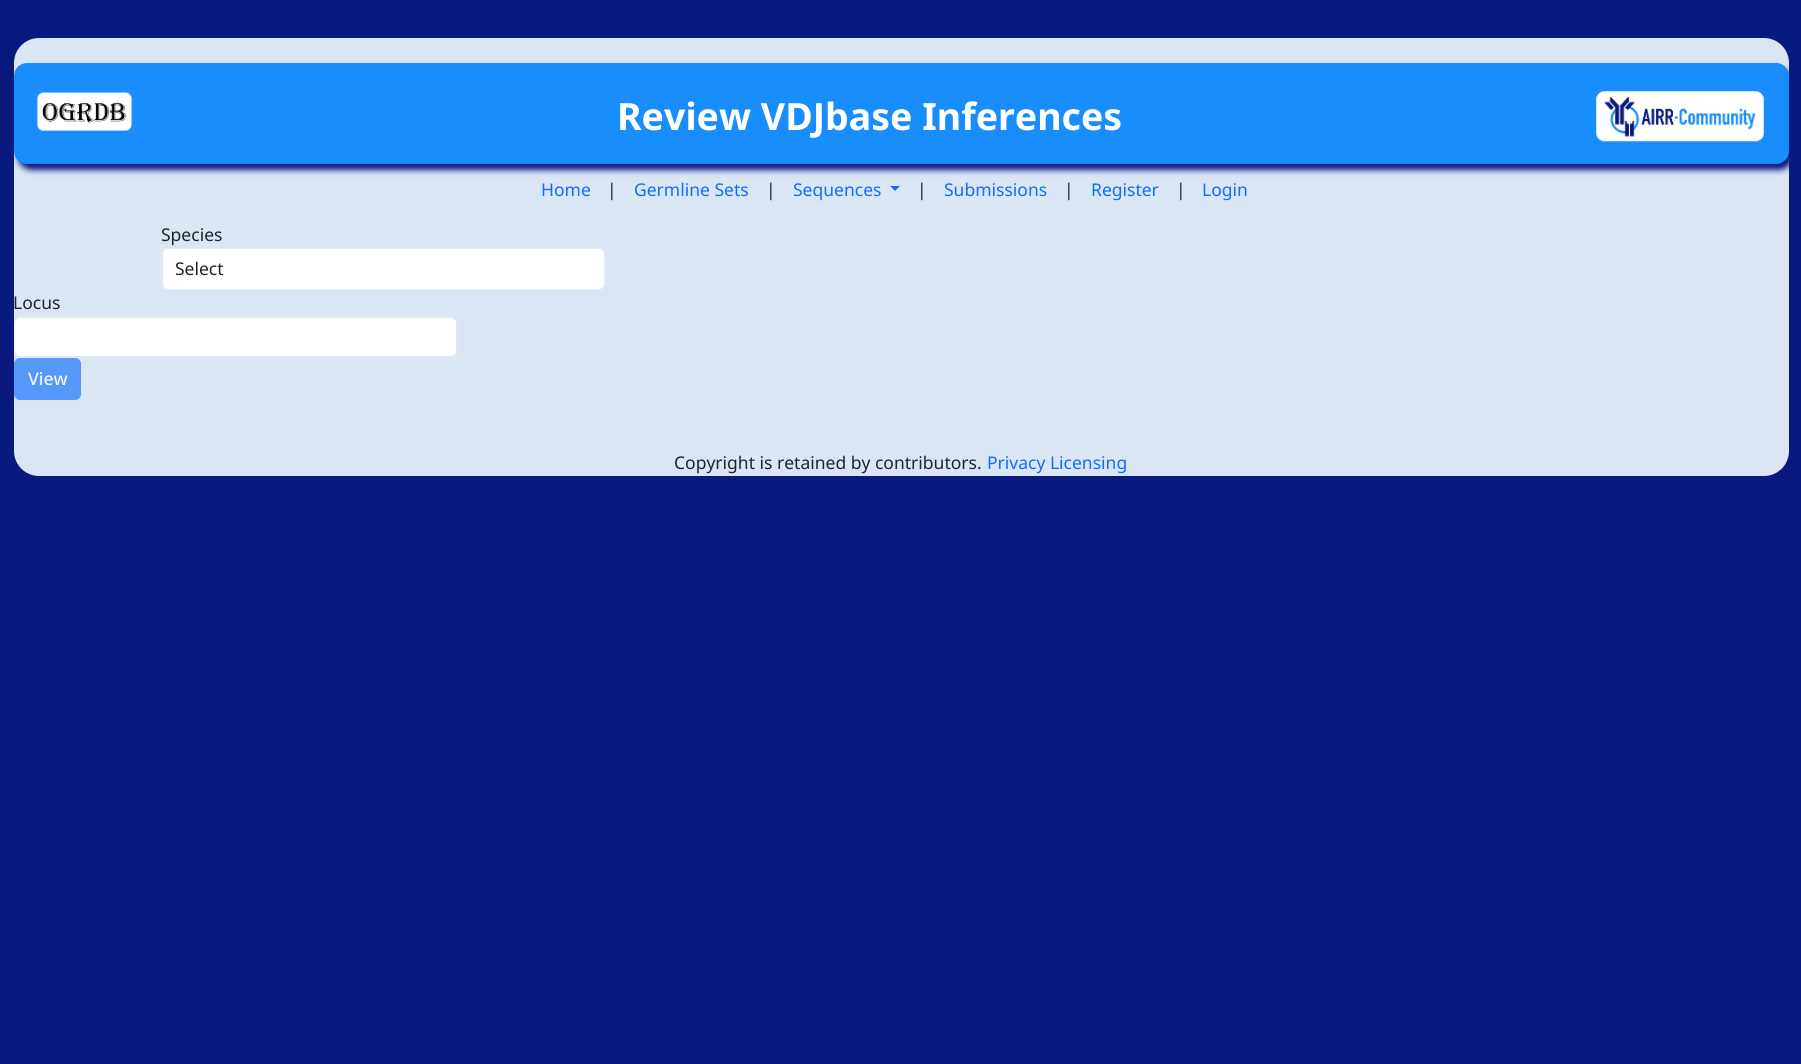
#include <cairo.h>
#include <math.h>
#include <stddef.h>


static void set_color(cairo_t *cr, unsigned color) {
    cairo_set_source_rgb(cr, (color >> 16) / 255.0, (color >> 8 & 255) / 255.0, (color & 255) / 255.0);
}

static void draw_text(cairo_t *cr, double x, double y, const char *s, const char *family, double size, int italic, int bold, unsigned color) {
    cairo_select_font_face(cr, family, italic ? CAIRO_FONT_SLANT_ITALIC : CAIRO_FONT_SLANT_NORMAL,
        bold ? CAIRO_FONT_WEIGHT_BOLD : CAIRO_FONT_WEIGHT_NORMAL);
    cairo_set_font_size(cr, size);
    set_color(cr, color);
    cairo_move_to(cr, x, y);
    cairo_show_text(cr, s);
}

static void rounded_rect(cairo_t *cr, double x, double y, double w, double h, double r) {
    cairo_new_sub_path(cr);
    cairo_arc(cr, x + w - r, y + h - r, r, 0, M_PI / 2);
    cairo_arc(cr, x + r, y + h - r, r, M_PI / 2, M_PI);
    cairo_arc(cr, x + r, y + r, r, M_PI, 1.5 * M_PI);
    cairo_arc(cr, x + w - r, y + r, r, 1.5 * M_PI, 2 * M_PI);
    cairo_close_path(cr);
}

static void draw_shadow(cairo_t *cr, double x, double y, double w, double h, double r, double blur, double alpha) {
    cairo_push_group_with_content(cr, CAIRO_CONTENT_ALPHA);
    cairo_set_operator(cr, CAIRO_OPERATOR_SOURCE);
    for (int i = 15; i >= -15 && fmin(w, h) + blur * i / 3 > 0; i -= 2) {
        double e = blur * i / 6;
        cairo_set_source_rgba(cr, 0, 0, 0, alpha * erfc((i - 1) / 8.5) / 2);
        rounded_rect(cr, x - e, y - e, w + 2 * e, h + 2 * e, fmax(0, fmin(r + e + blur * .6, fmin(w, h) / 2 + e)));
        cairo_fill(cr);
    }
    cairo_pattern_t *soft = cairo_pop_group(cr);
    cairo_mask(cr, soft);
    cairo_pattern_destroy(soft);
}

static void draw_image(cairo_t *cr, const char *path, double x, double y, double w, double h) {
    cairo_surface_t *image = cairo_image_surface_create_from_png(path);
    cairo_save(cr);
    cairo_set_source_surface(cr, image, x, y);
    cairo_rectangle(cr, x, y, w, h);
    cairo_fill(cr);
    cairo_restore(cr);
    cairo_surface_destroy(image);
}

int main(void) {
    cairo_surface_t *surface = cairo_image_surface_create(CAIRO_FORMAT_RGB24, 1801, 1064);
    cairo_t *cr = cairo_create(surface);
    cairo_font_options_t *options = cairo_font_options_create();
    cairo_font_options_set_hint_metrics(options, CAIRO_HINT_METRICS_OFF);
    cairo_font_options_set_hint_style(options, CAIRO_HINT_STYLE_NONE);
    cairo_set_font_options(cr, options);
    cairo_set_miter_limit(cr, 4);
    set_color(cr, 0x09197D);
    cairo_paint(cr);
    set_color(cr, 0xDAE6F3);
    rounded_rect(cr, 14, 38, 1775, 438, 25);
    cairo_fill(cr);
    set_color(cr, 0x09197D);
    draw_shadow(cr, 18, 69, 1775, 101, 13, 3, 1);
    set_color(cr, 0x188DFB);
    rounded_rect(cr, 14, 63, 1775, 101, 13);
    cairo_fill(cr);
    cairo_set_source_rgba(cr, 0.2, 0.478, 0.718, 0.2);
    cairo_rectangle(cr, 20, 163, 1763, 1);
    cairo_fill(cr);
    draw_image(cr, "assets/img1.png", 36, 92, 96, 39);
    draw_text(cr, 617, 130, "Review VDJbase Inferences", "Noto Sans", 37.5, 0, 1, 0xFFFFFF);
    draw_image(cr, "assets/img2.png", 1596, 91, 168, 51);
    draw_text(cr, 541, 196, "Home", "Noto Sans", 17.5, 0, 0, 0x0D6EFD);
    draw_text(cr, 607, 196, "|", "Noto Sans", 17.5, 0, 0, 0x212529);
    draw_text(cr, 634, 196, "Germline Sets", "Noto Sans", 17.5, 0, 0, 0x0D6EFD);
    draw_text(cr, 766, 196, "|", "Noto Sans", 17.5, 0, 0, 0x212529);
    draw_text(cr, 793, 196, "Sequences", "Noto Sans", 17.5, 0, 0, 0x0D6EFD);
    cairo_new_path(cr);
    cairo_move_to(cr, 890, 186);
    cairo_line_to(cr, 900, 186);
    cairo_line_to(cr, 895, 191);
    cairo_close_path(cr);
    cairo_fill(cr);
    draw_text(cr, 917, 196, "|", "Noto Sans", 17.5, 0, 0, 0x212529);
    draw_text(cr, 944, 196, "Submissions", "Noto Sans", 17.5, 0, 0, 0x0D6EFD);
    draw_text(cr, 1064, 196, "|", "Noto Sans", 17.5, 0, 0, 0x212529);
    draw_text(cr, 1091, 196, "Register", "Noto Sans", 17.5, 0, 0, 0x0D6EFD);
    draw_text(cr, 1176, 196, "|", "Noto Sans", 17.5, 0, 0, 0x212529);
    draw_text(cr, 1202, 196, "Login", "Noto Sans", 17.5, 0, 0, 0x0D6EFD);
    draw_text(cr, 161, 241, "Species", "Noto Sans", 17.5, 0, 0, 0x212529);
    set_color(cr, 0xFFFFFF);
    rounded_rect(cr, 163, 249, 441, 40, 5);
    cairo_fill(cr);
    rounded_rect(cr, 161.5, 248.5, 443, 41, 5.5);
    set_color(cr, 0xE9ECEF);
    cairo_set_line_width(cr, 1);
    cairo_stroke(cr);
    draw_text(cr, 175, 275, "Select", "Noto Sans", 17.5, 0, 0, 0x212529);
    draw_text(cr, 13, 309, "Locus", "Noto Sans", 17.5, 0, 0, 0x212529);
    set_color(cr, 0xFFFFFF);
    rounded_rect(cr, 15, 318, 441, 38, 5);
    cairo_fill(cr);
    rounded_rect(cr, 14.5, 316.5, 443, 41, 5.5);
    set_color(cr, 0xE9ECEF);
    cairo_stroke(cr);
    set_color(cr, 0x5598FA);
    rounded_rect(cr, 14.5, 358.5, 66, 41, 5.5);
    cairo_fill_preserve(cr);
    cairo_stroke(cr);
    draw_text(cr, 28, 385, "View", "Noto Sans Medium", 17.5, 0, 0, 0xF2F6FB);
    draw_text(cr, 674, 469, "Copyright is retained by contributors.", "Noto Sans", 17.5, 0, 0, 0x212529);
    draw_text(cr, 987, 469, "Privacy Licensing", "Noto Sans", 17.5, 0, 0, 0x0D6EFD);
    cairo_surface_write_to_png(surface, "output.png");
    cairo_font_options_destroy(options);
    cairo_destroy(cr);
    cairo_surface_destroy(surface);
    return 0;
}
